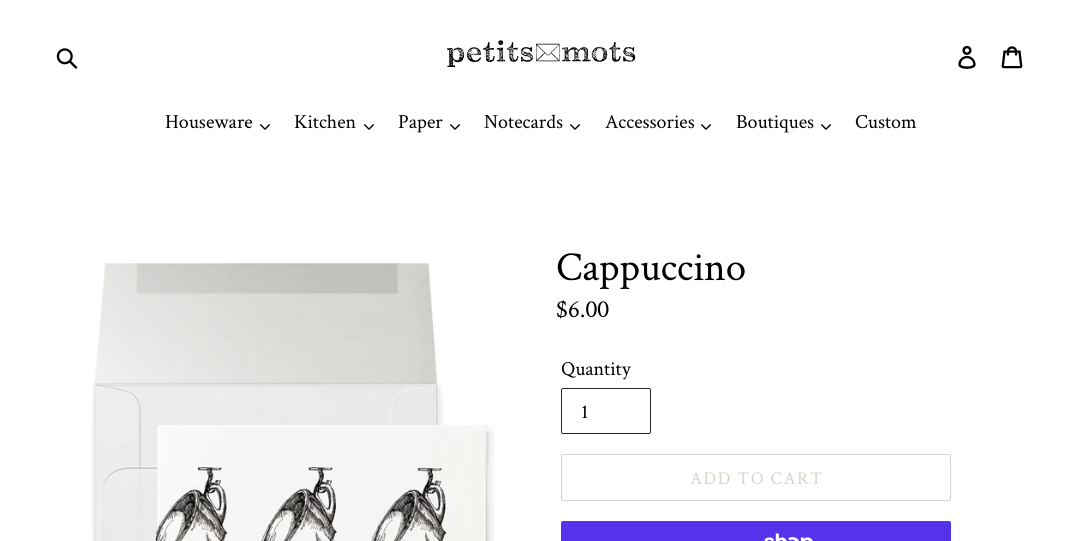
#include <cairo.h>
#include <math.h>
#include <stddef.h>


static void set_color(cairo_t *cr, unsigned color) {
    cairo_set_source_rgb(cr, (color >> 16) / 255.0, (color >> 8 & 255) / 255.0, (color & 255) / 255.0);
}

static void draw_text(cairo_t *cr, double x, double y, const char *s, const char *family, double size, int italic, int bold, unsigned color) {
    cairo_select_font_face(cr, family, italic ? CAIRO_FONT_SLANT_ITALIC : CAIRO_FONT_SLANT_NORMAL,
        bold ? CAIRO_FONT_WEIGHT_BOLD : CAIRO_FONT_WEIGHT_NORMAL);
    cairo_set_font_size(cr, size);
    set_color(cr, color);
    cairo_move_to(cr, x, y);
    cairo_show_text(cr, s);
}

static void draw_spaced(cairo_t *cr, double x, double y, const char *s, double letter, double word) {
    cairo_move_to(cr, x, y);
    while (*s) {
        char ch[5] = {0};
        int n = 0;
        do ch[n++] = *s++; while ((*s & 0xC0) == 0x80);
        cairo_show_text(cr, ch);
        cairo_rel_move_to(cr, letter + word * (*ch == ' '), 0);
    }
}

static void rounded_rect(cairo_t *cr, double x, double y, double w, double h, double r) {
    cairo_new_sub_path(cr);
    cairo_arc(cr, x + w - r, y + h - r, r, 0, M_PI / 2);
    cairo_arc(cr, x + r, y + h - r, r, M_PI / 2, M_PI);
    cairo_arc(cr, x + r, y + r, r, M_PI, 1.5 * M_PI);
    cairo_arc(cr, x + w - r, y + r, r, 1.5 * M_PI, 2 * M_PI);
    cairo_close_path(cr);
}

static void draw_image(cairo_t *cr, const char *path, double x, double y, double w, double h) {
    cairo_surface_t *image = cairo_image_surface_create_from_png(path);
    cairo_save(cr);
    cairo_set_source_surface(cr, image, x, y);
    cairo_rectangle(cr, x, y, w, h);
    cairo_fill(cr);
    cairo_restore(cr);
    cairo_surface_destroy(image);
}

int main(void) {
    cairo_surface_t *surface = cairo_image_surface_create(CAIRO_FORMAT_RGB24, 1082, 541);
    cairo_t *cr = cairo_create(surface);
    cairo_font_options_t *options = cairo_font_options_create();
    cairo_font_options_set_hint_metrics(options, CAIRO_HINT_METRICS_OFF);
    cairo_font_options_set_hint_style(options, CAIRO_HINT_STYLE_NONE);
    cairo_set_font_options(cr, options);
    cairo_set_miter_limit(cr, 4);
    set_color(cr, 0xFFFFFF);
    cairo_paint(cr);
    draw_image(cr, "assets/img1.png", 56, 48, 22, 21);
    draw_image(cr, "assets/img2.png", 447, 40, 189, 27);
    draw_image(cr, "assets/img3.png", 958, 46, 18, 23);
    draw_image(cr, "assets/img4.png", 1001, 46, 22, 23);
    draw_text(cr, 165, 128, "Houseware", "Crimson Text", 20, 0, 0, 0x000000);
    draw_image(cr, "assets/img5.png", 260, 124, 10, 6);
    draw_text(cr, 294, 128, "Kitchen", "Crimson Text", 20, 0, 0, 0x000000);
    draw_image(cr, "assets/img5.png", 364, 124, 10, 6);
    draw_text(cr, 398, 128, "Paper", "Crimson Text", 20, 0, 0, 0x000000);
    draw_image(cr, "assets/img5.png", 450, 124, 10, 6);
    draw_text(cr, 484, 128, "Notecards", "Crimson Text", 20, 0, 0, 0x000000);
    draw_image(cr, "assets/img5.png", 570, 124, 10, 6);
    draw_text(cr, 605, 128, "Accessories", "Crimson Text", 20, 0, 0, 0x000000);
    draw_image(cr, "assets/img5.png", 701, 124, 10, 6);
    draw_text(cr, 736, 128, "Boutiques", "Crimson Text", 20, 0, 0, 0x000000);
    draw_image(cr, "assets/img5.png", 821, 124, 10, 6);
    draw_text(cr, 855, 128, "Custom", "Crimson Text", 20, 0, 0, 0x000000);
    draw_image(cr, "assets/img6.png", 91, 262, 404, 279);
    draw_text(cr, 556, 280, "Cappuccino", "Crimson Text", 41, 0, 0, 0x000000);
    draw_text(cr, 556, 317, "$6.00", "Crimson Text", 25, 0, 0, 0x000000);
    draw_text(cr, 561, 375, "Quantity", "Crimson Text", 20, 0, 0, 0x000000);
    rounded_rect(cr, 561.5, 388.5, 89, 45, 1.5);
    set_color(cr, 0x262626);
    cairo_set_line_width(cr, 1);
    cairo_stroke(cr);
    draw_text(cr, 580, 418, "1", "Crimson Text", 20, 0, 0, 0x000000);
    rounded_rect(cr, 561.5, 454.5, 389, 46, 1.5);
    set_color(cr, 0xD3D6CB);
    cairo_stroke(cr);
    cairo_set_font_size(cr, 18);
    draw_spaced(cr, 690, 484, "ADD TO CART", 1.5, 0);
    set_color(cr, 0x5433EB);
    rounded_rect(cr, 561, 521, 390, 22, 2);
    cairo_fill(cr);
    draw_image(cr, "assets/img7.png", 764, 533, 49, 8);
    cairo_surface_write_to_png(surface, "output.png");
    cairo_font_options_destroy(options);
    cairo_destroy(cr);
    cairo_surface_destroy(surface);
    return 0;
}
